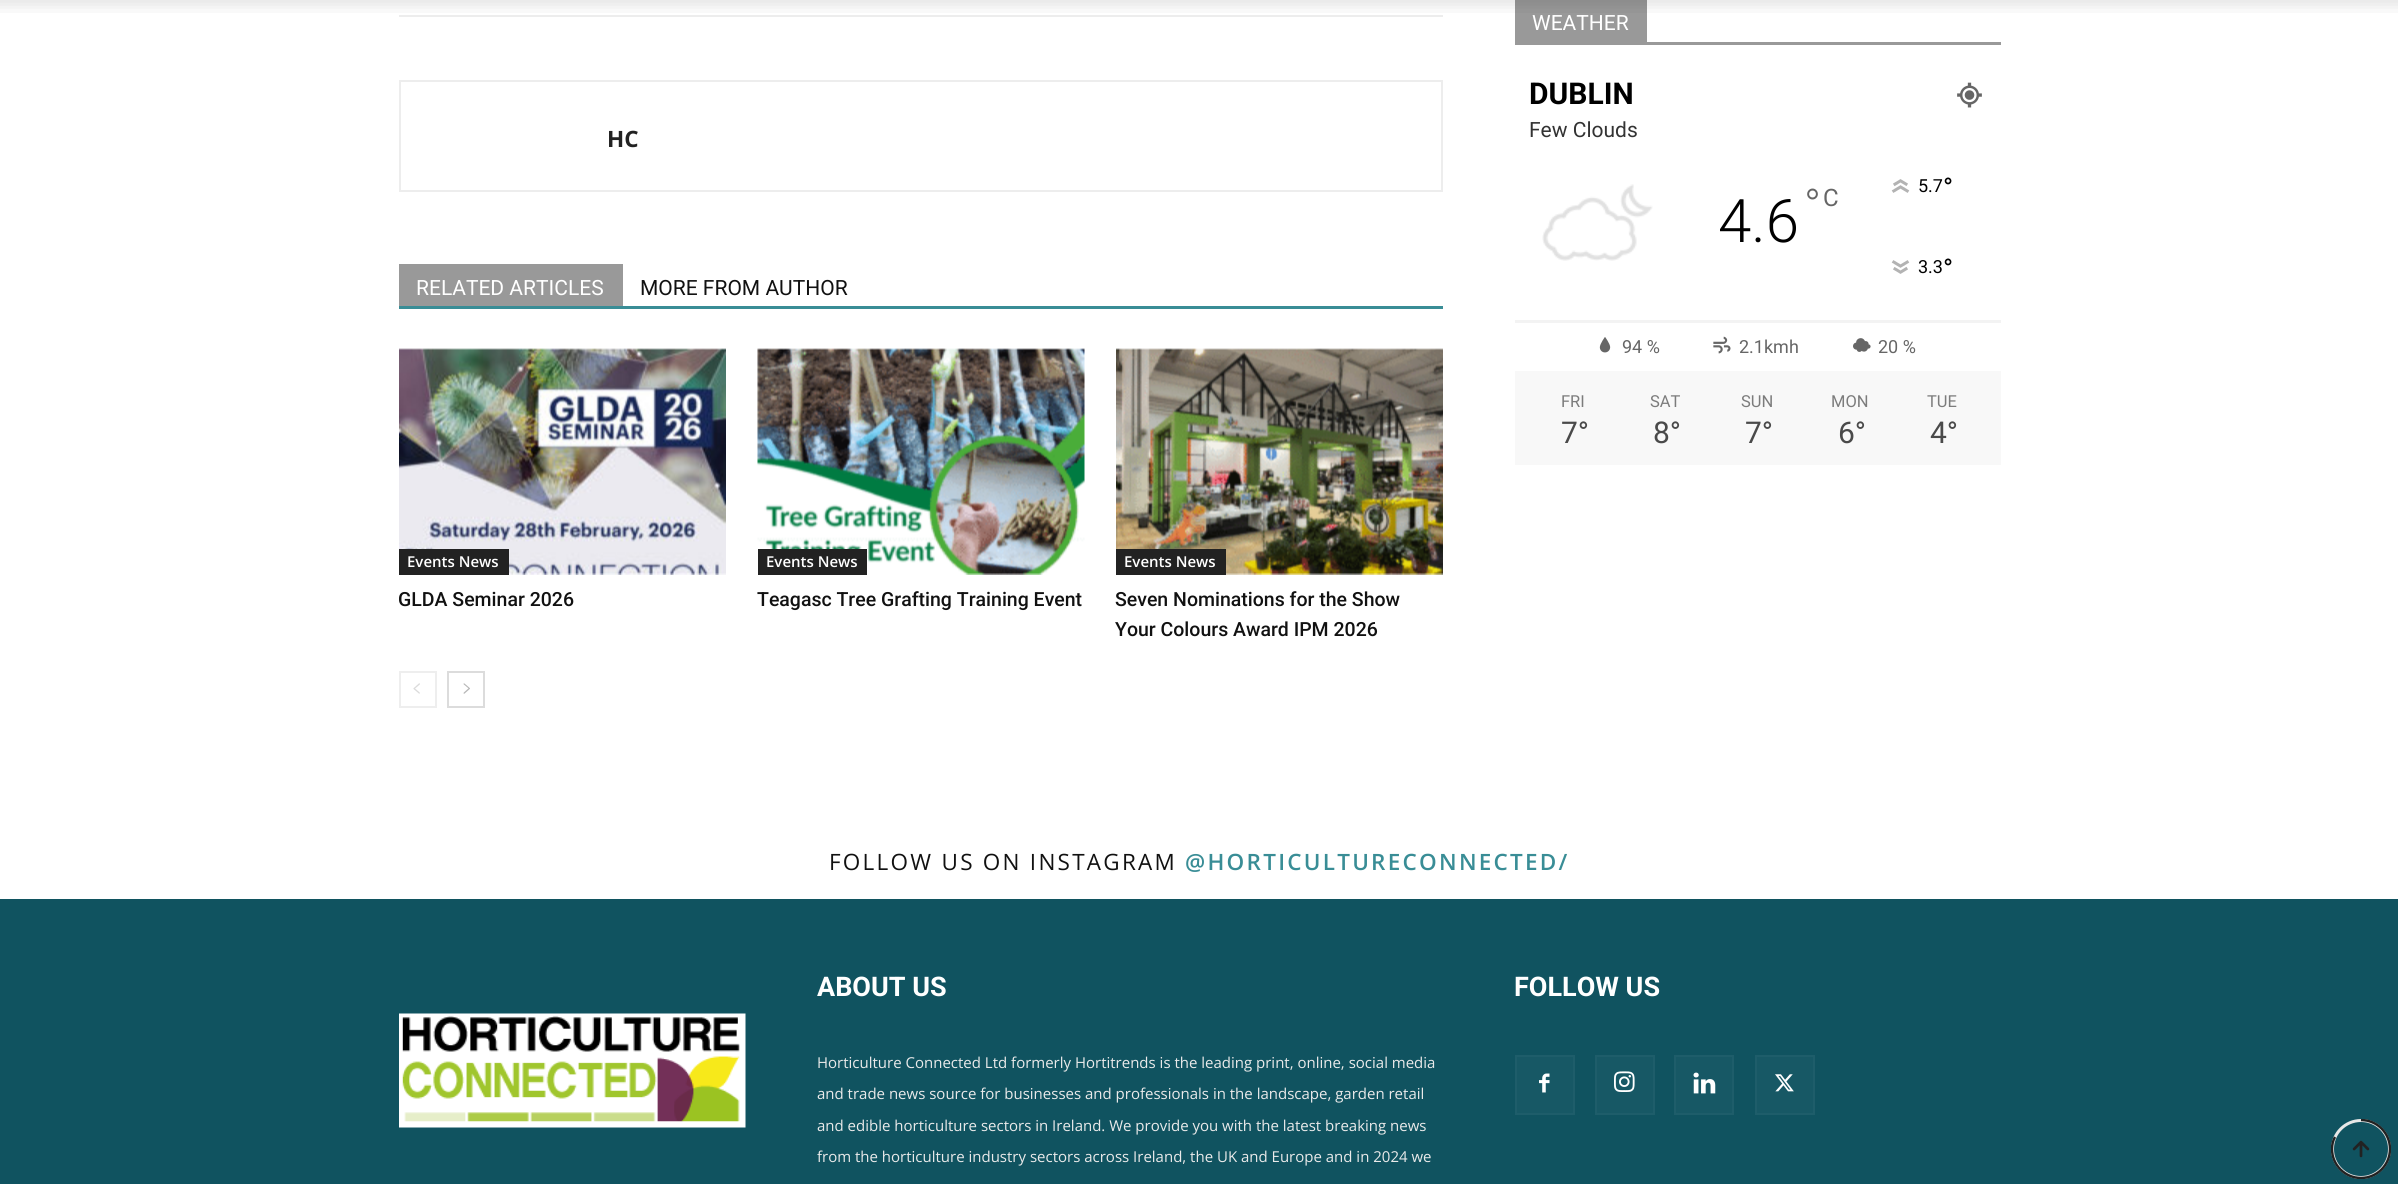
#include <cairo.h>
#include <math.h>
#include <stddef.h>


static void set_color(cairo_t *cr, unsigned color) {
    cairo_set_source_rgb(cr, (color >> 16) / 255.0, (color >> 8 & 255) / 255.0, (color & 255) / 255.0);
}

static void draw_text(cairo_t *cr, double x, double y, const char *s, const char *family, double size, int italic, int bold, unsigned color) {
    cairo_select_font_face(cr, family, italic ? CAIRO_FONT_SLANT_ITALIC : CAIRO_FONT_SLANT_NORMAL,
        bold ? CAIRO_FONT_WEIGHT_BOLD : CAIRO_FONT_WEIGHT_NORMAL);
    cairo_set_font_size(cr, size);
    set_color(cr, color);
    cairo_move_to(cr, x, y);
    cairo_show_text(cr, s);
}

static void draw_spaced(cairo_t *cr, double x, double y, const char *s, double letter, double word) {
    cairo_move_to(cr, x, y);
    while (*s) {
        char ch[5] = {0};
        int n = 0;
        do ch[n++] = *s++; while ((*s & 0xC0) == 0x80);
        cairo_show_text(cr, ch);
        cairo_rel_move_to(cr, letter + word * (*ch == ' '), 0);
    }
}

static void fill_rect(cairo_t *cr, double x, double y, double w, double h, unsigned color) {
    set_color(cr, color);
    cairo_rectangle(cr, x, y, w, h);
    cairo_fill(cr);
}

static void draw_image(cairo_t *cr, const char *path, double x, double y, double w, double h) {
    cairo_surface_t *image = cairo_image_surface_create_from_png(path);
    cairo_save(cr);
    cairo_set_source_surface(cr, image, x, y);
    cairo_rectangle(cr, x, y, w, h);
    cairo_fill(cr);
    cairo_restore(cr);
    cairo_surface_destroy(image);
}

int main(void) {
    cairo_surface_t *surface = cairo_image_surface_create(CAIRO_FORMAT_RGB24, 2398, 1184);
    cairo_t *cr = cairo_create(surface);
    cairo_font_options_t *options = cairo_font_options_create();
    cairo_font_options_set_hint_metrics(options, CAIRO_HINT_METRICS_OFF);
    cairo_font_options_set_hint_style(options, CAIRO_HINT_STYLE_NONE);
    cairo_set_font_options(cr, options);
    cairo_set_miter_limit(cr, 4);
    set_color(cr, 0xFFFFFF);
    cairo_paint(cr);
    fill_rect(cr, 1515, 0, 132, 42, 0x999999);
    draw_image(cr, "assets/img1.png", 0, 0, 2398, 13);
    fill_rect(cr, 399, 15, 1044, 2, 0xEDEDED);
    cairo_rectangle(cr, 400, 81, 1042, 110);
    cairo_stroke(cr);
    draw_text(cr, 607, 147, "HC", "Open Sans", 22.5, 0, 1, 0x222222);
    fill_rect(cr, 399, 306, 1044, 3, 0x398D96);
    fill_rect(cr, 399, 264, 224, 42, 0x999999);
    draw_text(cr, 416, 295, "RELATED ARTICLES", "Roboto", 21, 0, 0, 0xFFFFFF);
    draw_text(cr, 640, 295, "MORE FROM AUTHOR", "Roboto", 21, 0, 0, 0x111111);
    draw_image(cr, "assets/img2.png", 399, 348, 327, 227);
    fill_rect(cr, 399, 549, 110, 26, 0x222222);
    draw_text(cr, 407, 567, "Events News", "Open Sans SemiBold", 15, 0, 0, 0xFFFFFF);
    draw_text(cr, 398, 606, "GLDA Seminar 2026", "Roboto Medium", 19.5, 0, 0, 0x111111);
    draw_image(cr, "assets/img3.png", 757, 348, 328, 227);
    fill_rect(cr, 758, 549, 109, 26, 0x222222);
    draw_text(cr, 766, 567, "Events News", "Open Sans SemiBold", 15, 0, 0, 0xFFFFFF);
    draw_text(cr, 757, 606, "Teagasc Tree Grafting Training Event", "Roboto Medium", 19.5, 0, 0, 0x111111);
    draw_image(cr, "assets/img4.png", 1116, 348, 327, 227);
    fill_rect(cr, 1116, 549, 110, 26, 0x222222);
    draw_text(cr, 1124, 567, "Events News", "Open Sans SemiBold", 15, 0, 0, 0xFFFFFF);
    draw_text(cr, 1115, 606, "Seven Nominations for the Show", "Roboto Medium", 19.5, 0, 0, 0x111111);
    draw_text(cr, 1115, 636, "Your Colours Award IPM 2026", "Roboto Medium", 19.5, 0, 0, 0x111111);
    cairo_rectangle(cr, 400, 672, 36, 35);
    set_color(cr, 0xEEEEEE);
    cairo_stroke(cr);
    draw_image(cr, "assets/img5.png", 413, 683, 7, 11);
    cairo_rectangle(cr, 448, 672, 36, 35);
    set_color(cr, 0xDCDCDC);
    cairo_stroke(cr);
    draw_image(cr, "assets/img6.png", 463, 683, 7, 11);
    fill_rect(cr, 1515, 42, 486, 3, 0x999999);
    draw_text(cr, 1532, 30, "WEATHER", "Roboto", 21, 0, 0, 0xFFFFFF);
    draw_text(cr, 1529, 104, "DUBLIN", "Roboto", 30, 0, 1, 0x000000);
    draw_image(cr, "assets/img7.png", 1957, 82, 25, 26);
    draw_text(cr, 1529, 137, "Few Clouds", "Roboto", 21, 0, 0, 0x333333);
    draw_image(cr, "assets/img8.png", 1542, 184, 111, 77);
    draw_text(cr, 1718, 242, "4.6", "Roboto Light", 60, 0, 0, 0x000000);
    draw_text(cr, 1804, 221, "°", "Roboto Light", 45, 0, 0, 0x666666);
    draw_text(cr, 1823, 206, "C", "Roboto", 24, 0, 0, 0x666666);
    draw_image(cr, "assets/img9.png", 1891, 179, 19, 14);
    draw_text(cr, 1918, 192, "5.7", "Roboto", 18, 0, 0, 0x000000);
    draw_text(cr, 1943, 197, "°", "Roboto", 27, 0, 0, 0x000000);
    draw_image(cr, "assets/img10.png", 1891, 260, 19, 14);
    draw_text(cr, 1918, 273, "3.3", "Roboto", 18, 0, 0, 0x000000);
    draw_text(cr, 1943, 278, "°", "Roboto", 27, 0, 0, 0x000000);
    fill_rect(cr, 1515, 320, 486, 3, 0xF3F3F3);
    draw_image(cr, "assets/img11.png", 1599, 337, 12, 16);
    draw_text(cr, 1622, 353, "94 %", "Roboto", 18, 0, 0, 0x666666);
    draw_image(cr, "assets/img12.png", 1713, 336, 18, 18);
    draw_text(cr, 1739, 353, "2.1kmh", "Roboto", 18, 0, 0, 0x666666);
    draw_image(cr, "assets/img13.png", 1853, 338, 18, 14);
    draw_text(cr, 1878, 353, "20 %", "Roboto", 18, 0, 0, 0x666666);
    fill_rect(cr, 1515, 371, 486, 94, 0xF8F8F8);
    draw_text(cr, 1561, 407, "FRI", "Roboto", 16.5, 0, 0, 0x7C7C7C);
    draw_text(cr, 1561, 443, "7°", "Roboto", 30, 0, 0, 0x4A4A4A);
    draw_text(cr, 1650, 407, "SAT", "Roboto", 16.5, 0, 0, 0x7C7C7C);
    draw_text(cr, 1653, 443, "8°", "Roboto", 30, 0, 0, 0x4A4A4A);
    draw_text(cr, 1741, 407, "SUN", "Roboto", 16.5, 0, 0, 0x7C7C7C);
    draw_text(cr, 1745, 443, "7°", "Roboto", 30, 0, 0, 0x4A4A4A);
    draw_text(cr, 1831, 407, "MON", "Roboto", 16.5, 0, 0, 0x7C7C7C);
    draw_text(cr, 1838, 443, "6°", "Roboto", 30, 0, 0, 0x4A4A4A);
    draw_text(cr, 1927, 407, "TUE", "Roboto", 16.5, 0, 0, 0x7C7C7C);
    draw_text(cr, 1930, 443, "4°", "Roboto", 30, 0, 0, 0x4A4A4A);
    cairo_select_font_face(cr, "Open Sans", CAIRO_FONT_SLANT_NORMAL, CAIRO_FONT_WEIGHT_NORMAL);
    cairo_set_font_size(cr, 22.5);
    set_color(cr, 0x111111);
    draw_spaced(cr, 829, 870, "FOLLOW US ON INSTAGRAM", 2.25, 0);
    cairo_select_font_face(cr, "Open Sans SemiBold", CAIRO_FONT_SLANT_NORMAL, CAIRO_FONT_WEIGHT_NORMAL);
    set_color(cr, 0x398D96);
    draw_spaced(cr, 1185, 870, "@HORTICULTURECONNECTED/", 2.25, 0);
    fill_rect(cr, 0, 899, 2398, 285, 0x105360);
    draw_text(cr, 817, 996, "ABOUT US", "Roboto", 27, 0, 1, 0xFFFFFF);
    draw_text(cr, 817, 1068, "Horticulture Connected Ltd formerly Hortitrends is the leading print, online, social media", "Open Sans", 15, 0, 0, 0xEAEAEA);
    draw_text(cr, 817, 1099, "and trade news source for businesses and professionals in the landscape, garden retail", "Open Sans", 15, 0, 0, 0xEAEAEA);
    draw_text(cr, 817, 1131, "and edible horticulture sectors in Ireland. We provide you with the latest breaking news", "Open Sans", 15, 0, 0, 0xEAEAEA);
    draw_text(cr, 817, 1162, "from the horticulture industry sectors across Ireland, the UK and Europe and in 2024 we", "Open Sans", 15, 0, 0, 0xEAEAEA);
    draw_text(cr, 1514, 996, "FOLLOW US", "Roboto", 27, 0, 1, 0xFFFFFF);
    fill_rect(cr, 1517, 1057, 56, 56, 0x175865);
    draw_image(cr, "assets/img14.png", 1539, 1073, 11, 20);
    cairo_rectangle(cr, 1516, 1056, 58, 58);
    set_color(cr, 0x1E5D6A);
    cairo_stroke(cr);
    fill_rect(cr, 1597, 1057, 56, 56, 0x175865);
    draw_image(cr, "assets/img15.png", 1614, 1071, 21, 21);
    cairo_rectangle(cr, 1596, 1056, 58, 58);
    set_color(cr, 0x1E5D6A);
    cairo_stroke(cr);
    fill_rect(cr, 1676, 1057, 56, 56, 0x175865);
    draw_image(cr, "assets/img16.png", 1693, 1072, 23, 22);
    cairo_rectangle(cr, 1675, 1056, 58, 58);
    set_color(cr, 0x1E5D6A);
    cairo_stroke(cr);
    fill_rect(cr, 1757, 1057, 56, 56, 0x175865);
    draw_image(cr, "assets/img17.png", 1775, 1074, 19, 18);
    cairo_rectangle(cr, 1756, 1056, 58, 58);
    set_color(cr, 0x1E5D6A);
    cairo_stroke(cr);
    draw_image(cr, "assets/img18.png", 399, 1013, 347, 115);
    cairo_arc(cr, 2361, 1149, 28.5, 0, 2 * M_PI);
    set_color(cr, 0xE7E7E7);
    cairo_set_line_width(cr, 3);
    cairo_stroke(cr);
    cairo_save(cr);
    cairo_rectangle(cr, 2331, 1119, 60, 60);
    cairo_clip(cr);
    cairo_new_path(cr);
    cairo_move_to(cr, 2361, 1120);
    cairo_curve_to(cr, 2377, 1120, 2390, 1133, 2390, 1149);
    cairo_curve_to(cr, 2390, 1165, 2377, 1178, 2361, 1178);
    cairo_curve_to(cr, 2345, 1178, 2332, 1165, 2332, 1149);
    cairo_curve_to(cr, 2332, 1144.5, 2333, 1140.5, 2335, 1137);
    set_color(cr, 0x222222);
    cairo_set_line_width(cr, 2.4);
    cairo_stroke(cr);
    cairo_restore(cr);
    draw_image(cr, "assets/img19.png", 2352, 1140, 18, 18);
    cairo_surface_write_to_png(surface, "output.png");
    cairo_font_options_destroy(options);
    cairo_destroy(cr);
    cairo_surface_destroy(surface);
    return 0;
}
